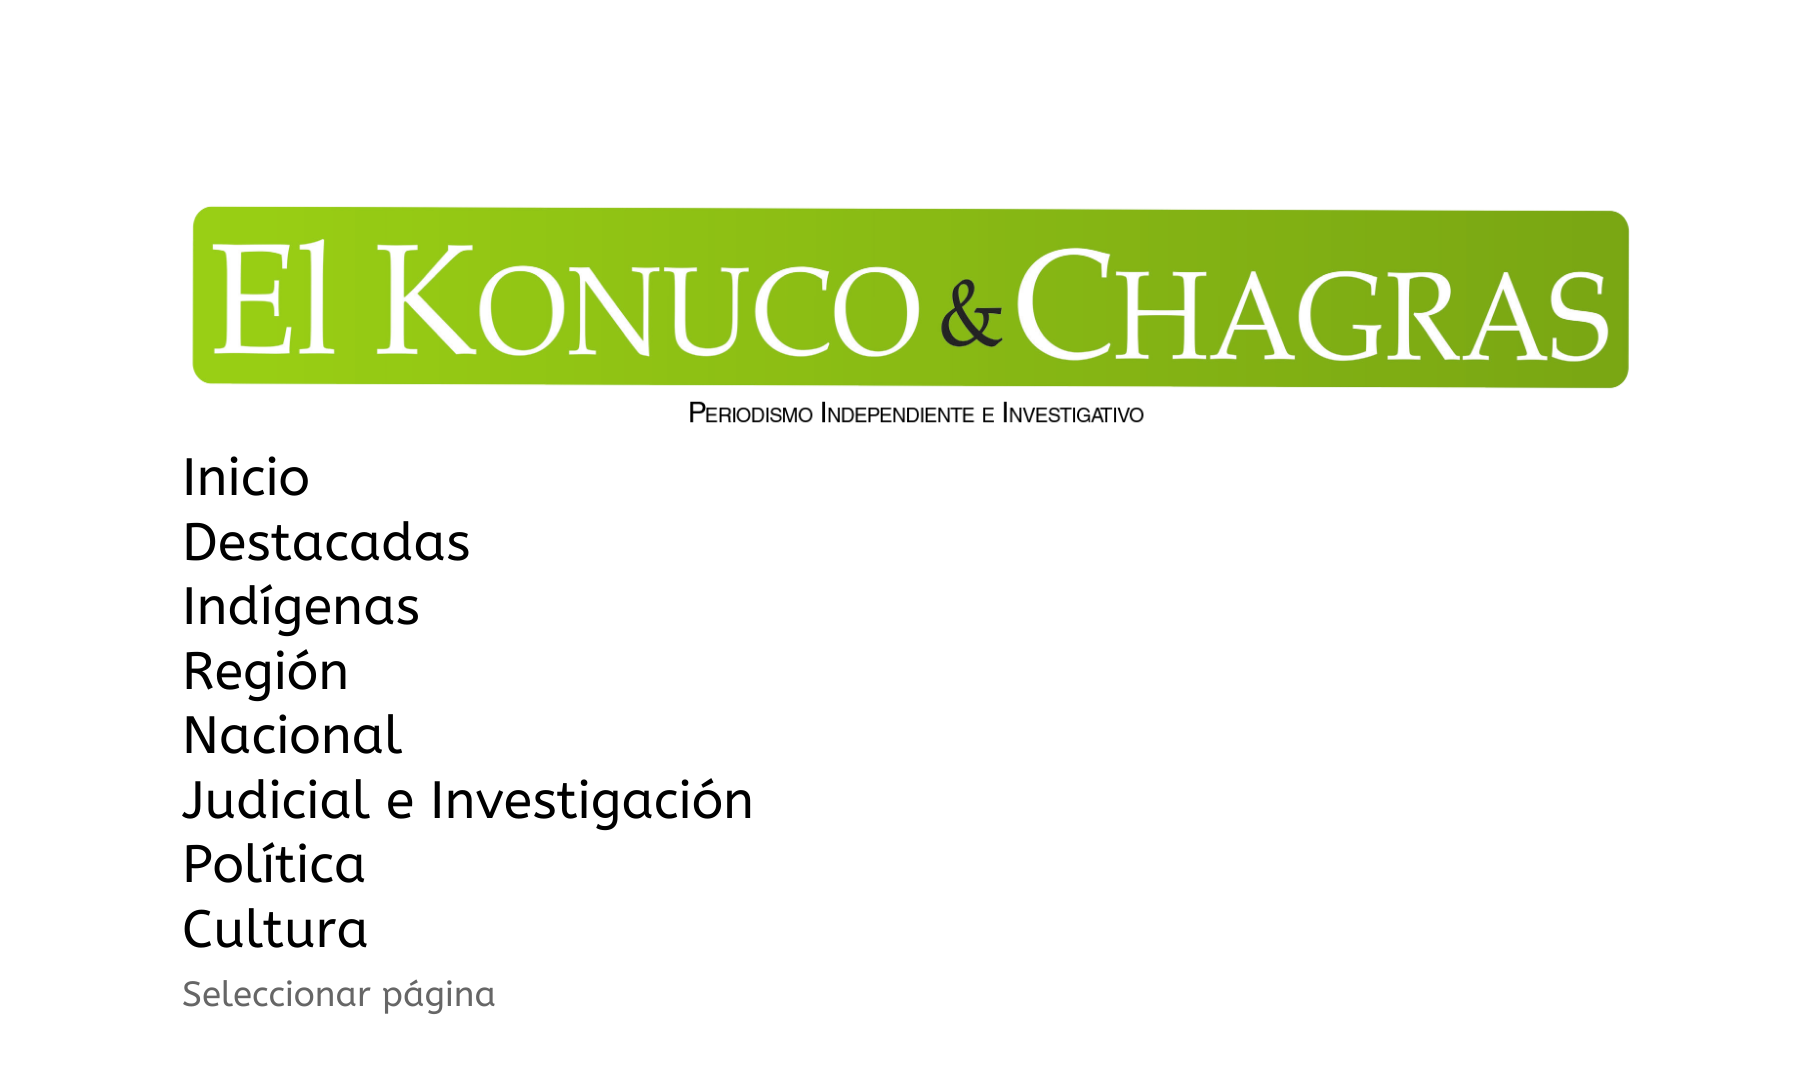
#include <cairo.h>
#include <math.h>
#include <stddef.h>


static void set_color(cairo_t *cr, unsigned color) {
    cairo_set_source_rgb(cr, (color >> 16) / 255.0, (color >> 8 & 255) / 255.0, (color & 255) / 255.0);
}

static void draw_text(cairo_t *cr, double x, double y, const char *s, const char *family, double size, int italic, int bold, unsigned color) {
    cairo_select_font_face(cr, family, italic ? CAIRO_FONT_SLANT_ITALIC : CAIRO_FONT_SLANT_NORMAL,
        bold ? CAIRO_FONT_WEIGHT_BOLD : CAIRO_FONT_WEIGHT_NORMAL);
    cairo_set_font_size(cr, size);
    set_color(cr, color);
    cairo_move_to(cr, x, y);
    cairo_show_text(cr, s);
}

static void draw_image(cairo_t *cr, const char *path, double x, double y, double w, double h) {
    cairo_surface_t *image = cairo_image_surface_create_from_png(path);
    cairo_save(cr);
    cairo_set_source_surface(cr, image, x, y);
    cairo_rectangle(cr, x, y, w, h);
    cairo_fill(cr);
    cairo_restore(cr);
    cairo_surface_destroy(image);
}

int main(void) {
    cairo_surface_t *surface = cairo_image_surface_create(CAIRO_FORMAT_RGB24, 1820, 1073);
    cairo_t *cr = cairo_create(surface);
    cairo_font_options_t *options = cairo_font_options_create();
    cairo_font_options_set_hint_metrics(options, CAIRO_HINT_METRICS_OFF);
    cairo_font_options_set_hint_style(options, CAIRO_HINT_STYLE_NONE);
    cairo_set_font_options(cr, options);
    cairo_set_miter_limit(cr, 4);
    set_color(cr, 0xFFFFFF);
    cairo_paint(cr);
    draw_image(cr, "assets/img1.png", 192, 205, 1438, 218);
    draw_text(cr, 182, 495, "Inicio", "ABeeZee", 52.5, 0, 0, 0x000000);
    draw_text(cr, 182, 560, "Destacadas", "ABeeZee", 52.5, 0, 0, 0x000000);
    draw_text(cr, 182, 624, "Indígenas", "ABeeZee", 52.5, 0, 0, 0x000000);
    draw_text(cr, 182, 689, "Región", "ABeeZee", 52.5, 0, 0, 0x000000);
    draw_text(cr, 182, 753, "Nacional", "ABeeZee", 52.5, 0, 0, 0x000000);
    draw_text(cr, 182, 818, "Judicial e Investigación", "ABeeZee", 52.5, 0, 0, 0x000000);
    draw_text(cr, 182, 882, "Política", "ABeeZee", 52.5, 0, 0, 0x000000);
    draw_text(cr, 182, 947, "Cultura", "ABeeZee", 52.5, 0, 0, 0x000000);
    draw_text(cr, 182, 1006, "Seleccionar página", "ABeeZee", 35, 0, 0, 0x666666);
    cairo_surface_write_to_png(surface, "output.png");
    cairo_font_options_destroy(options);
    cairo_destroy(cr);
    cairo_surface_destroy(surface);
    return 0;
}
